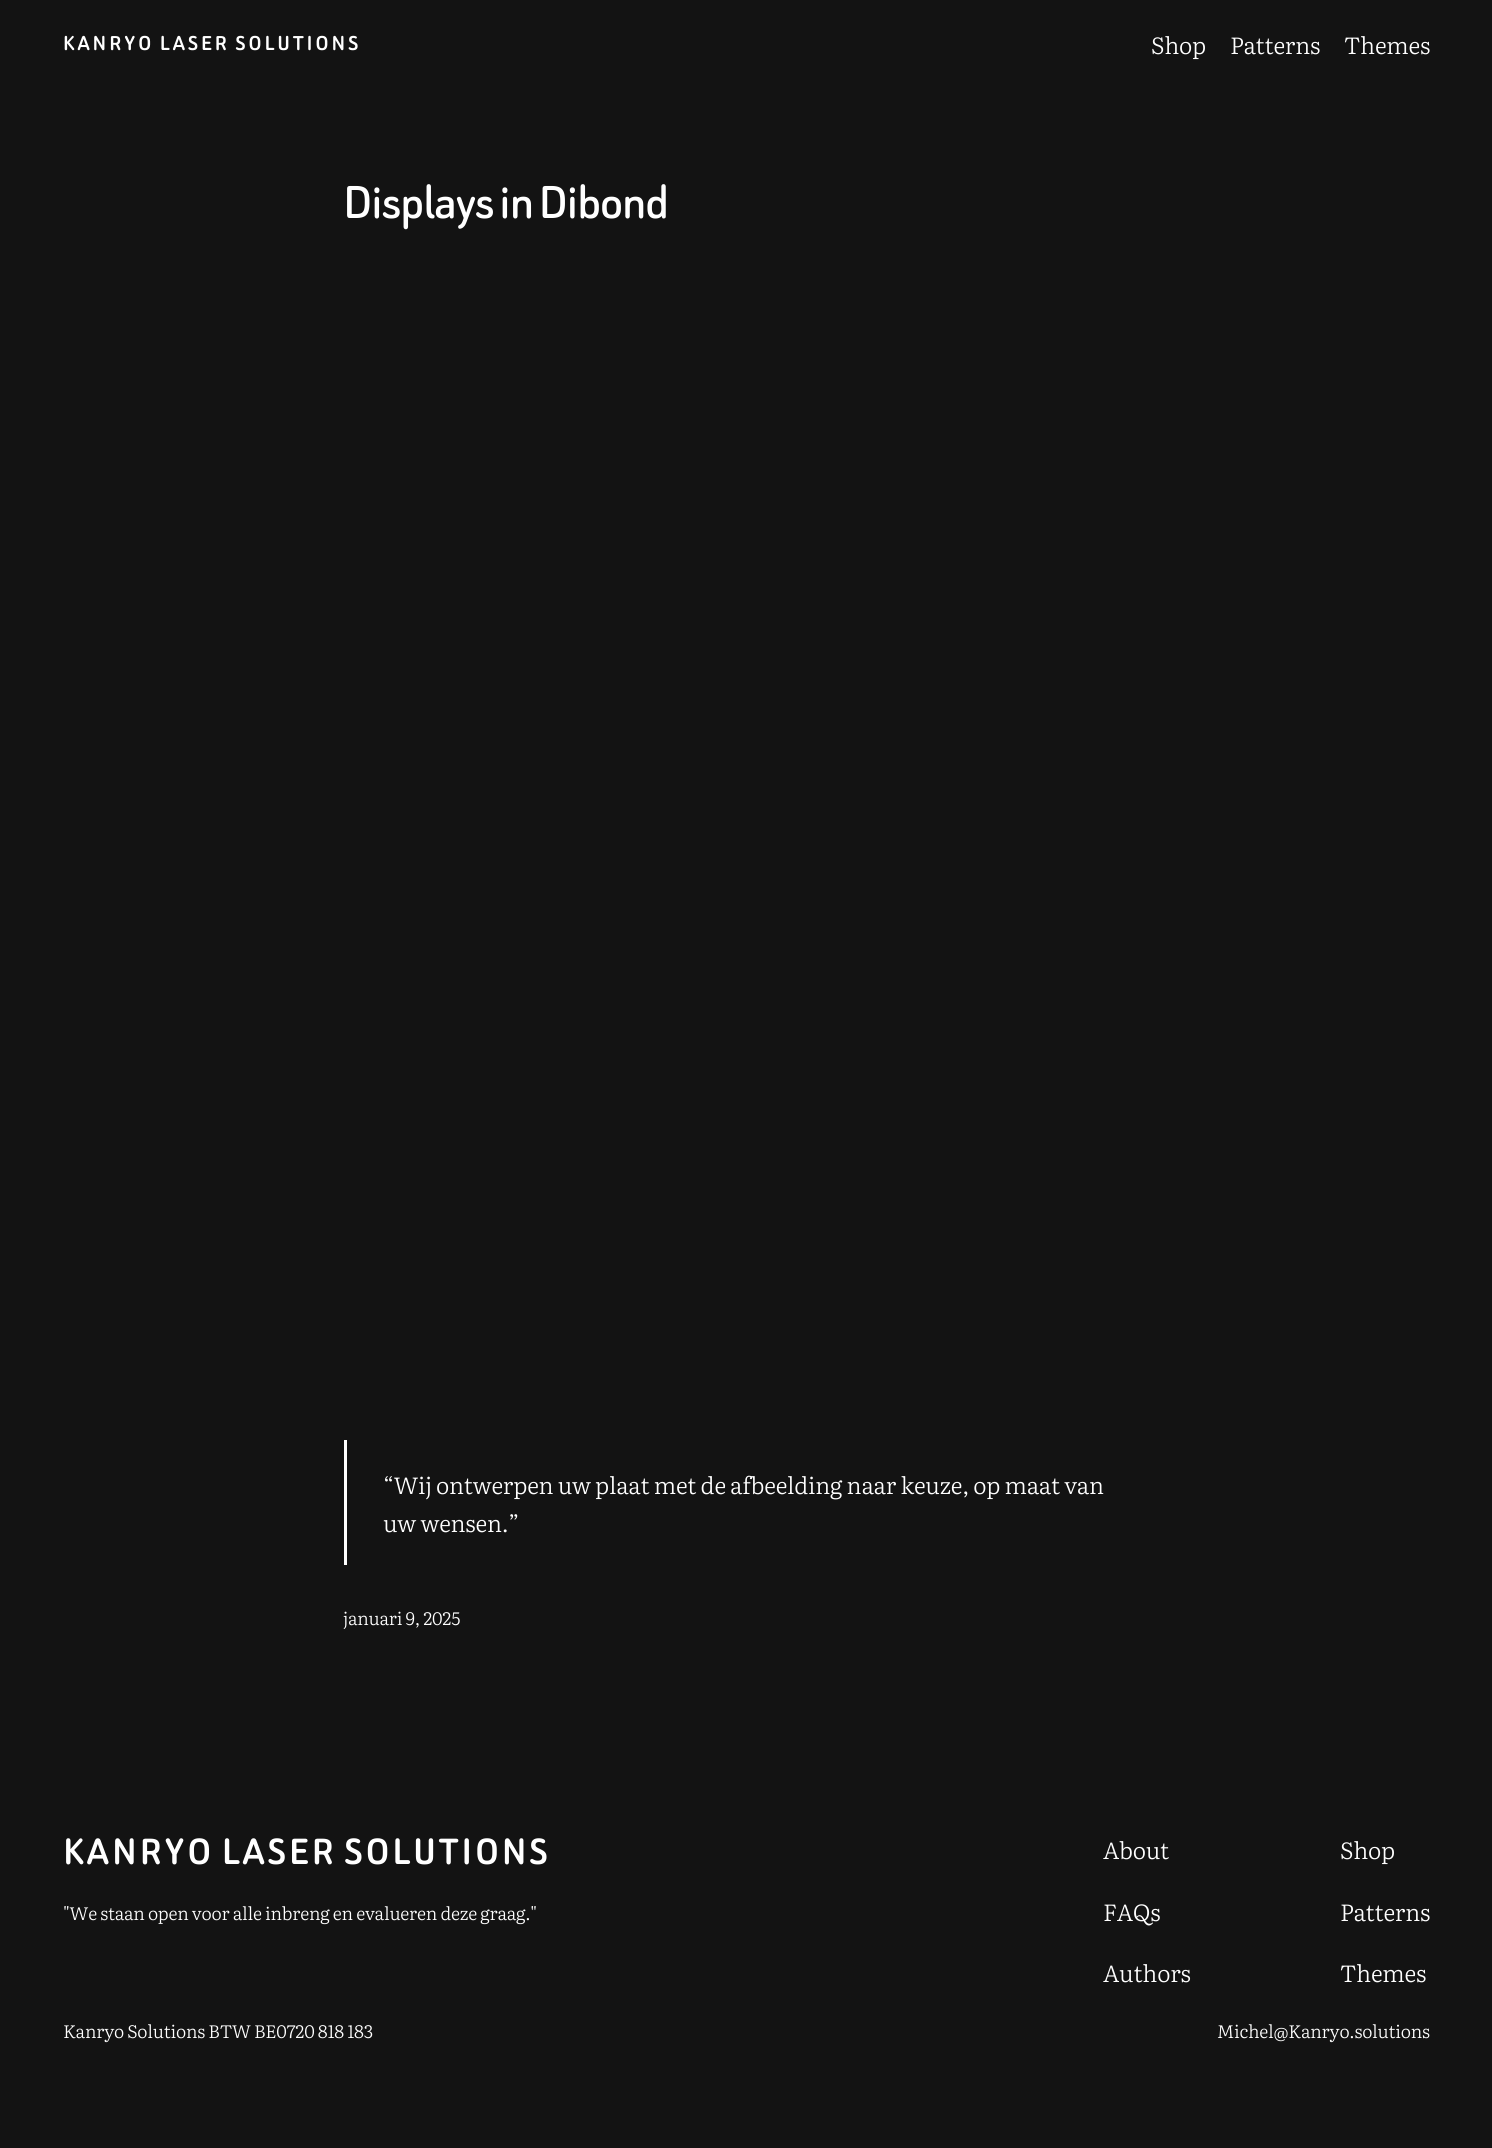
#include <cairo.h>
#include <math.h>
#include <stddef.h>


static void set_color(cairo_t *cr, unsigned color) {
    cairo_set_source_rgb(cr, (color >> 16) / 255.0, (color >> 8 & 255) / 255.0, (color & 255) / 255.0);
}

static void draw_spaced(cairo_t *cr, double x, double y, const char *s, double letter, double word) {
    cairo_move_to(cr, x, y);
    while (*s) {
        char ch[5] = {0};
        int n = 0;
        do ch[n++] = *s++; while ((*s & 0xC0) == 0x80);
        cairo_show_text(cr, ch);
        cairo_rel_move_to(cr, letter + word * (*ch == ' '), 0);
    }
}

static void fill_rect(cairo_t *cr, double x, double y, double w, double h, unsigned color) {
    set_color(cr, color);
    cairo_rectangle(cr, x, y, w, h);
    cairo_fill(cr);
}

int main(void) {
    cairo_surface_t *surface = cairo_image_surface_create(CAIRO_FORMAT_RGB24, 1492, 2148);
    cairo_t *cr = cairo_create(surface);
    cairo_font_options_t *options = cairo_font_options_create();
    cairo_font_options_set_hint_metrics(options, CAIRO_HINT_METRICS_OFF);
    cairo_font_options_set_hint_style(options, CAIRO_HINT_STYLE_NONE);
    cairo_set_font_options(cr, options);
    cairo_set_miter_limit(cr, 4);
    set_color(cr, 0x131313);
    cairo_paint(cr);
    cairo_select_font_face(cr, "Beiruti SemiBold", CAIRO_FONT_SLANT_NORMAL, CAIRO_FONT_WEIGHT_NORMAL);
    cairo_set_font_size(cr, 23.4);
    set_color(cr, 0xFFFFFF);
    draw_spaced(cr, 63, 50, "KANRYO LASER SOLUTIONS", 3, 0);
    cairo_select_font_face(cr, "Literata Light", CAIRO_FONT_SLANT_NORMAL, CAIRO_FONT_WEIGHT_NORMAL);
    draw_spaced(cr, 1151, 54, "Shop", -0.23, 0);
    draw_spaced(cr, 1230, 54, "Patterns", -0.23, 0);
    draw_spaced(cr, 1344, 54, "Themes", -0.23, 0);
    cairo_select_font_face(cr, "Beiruti Medium", CAIRO_FONT_SLANT_NORMAL, CAIRO_FONT_WEIGHT_NORMAL);
    cairo_set_font_size(cr, 53.75);
    draw_spaced(cr, 343, 218, "Displays in Dibond", -1.1, 0);
    fill_rect(cr, 344, 1440, 3, 125, 0xFFFFFF);
    cairo_select_font_face(cr, "Literata Light", CAIRO_FONT_SLANT_NORMAL, CAIRO_FONT_WEIGHT_NORMAL);
    cairo_set_font_size(cr, 23.4);
    draw_spaced(cr, 383, 1494, "“Wij ontwerpen uw plaat met de afbeelding naar keuze, op maat van", -0.23, 0);
    draw_spaced(cr, 383, 1532, "uw wensen.”", -0.23, 0);
    cairo_set_font_size(cr, 18);
    draw_spaced(cr, 343, 1625, "januari 9, 2025", -0.23, 0);
    cairo_select_font_face(cr, "Beiruti SemiBold", CAIRO_FONT_SLANT_NORMAL, CAIRO_FONT_WEIGHT_NORMAL);
    cairo_set_font_size(cr, 42.5);
    draw_spaced(cr, 63, 1864, "KANRYO LASER SOLUTIONS", 3, 0);
    cairo_select_font_face(cr, "Literata Light", CAIRO_FONT_SLANT_NORMAL, CAIRO_FONT_WEIGHT_NORMAL);
    cairo_set_font_size(cr, 18);
    draw_spaced(cr, 63, 1920, "\"We staan open voor alle inbreng en evalueren deze graag.\"", -0.23, 0);
    cairo_set_font_size(cr, 23.4);
    draw_spaced(cr, 1103, 1859, "About", -0.23, 0);
    draw_spaced(cr, 1103, 1921, "FAQs", -0.23, 0);
    draw_spaced(cr, 1103, 1982, "Authors", -0.23, 0);
    draw_spaced(cr, 1340, 1859, "Shop", -0.23, 0);
    draw_spaced(cr, 1340, 1921, "Patterns", -0.23, 0);
    draw_spaced(cr, 1340, 1982, "Themes", -0.23, 0);
    cairo_set_font_size(cr, 18);
    draw_spaced(cr, 63, 2038, "Kanryo Solutions BTW BE0720 818 183", -0.23, 0);
    draw_spaced(cr, 1217, 2038, "Michel@Kanryo.solutions", -0.23, 0);
    cairo_surface_write_to_png(surface, "output.png");
    cairo_font_options_destroy(options);
    cairo_destroy(cr);
    cairo_surface_destroy(surface);
    return 0;
}
